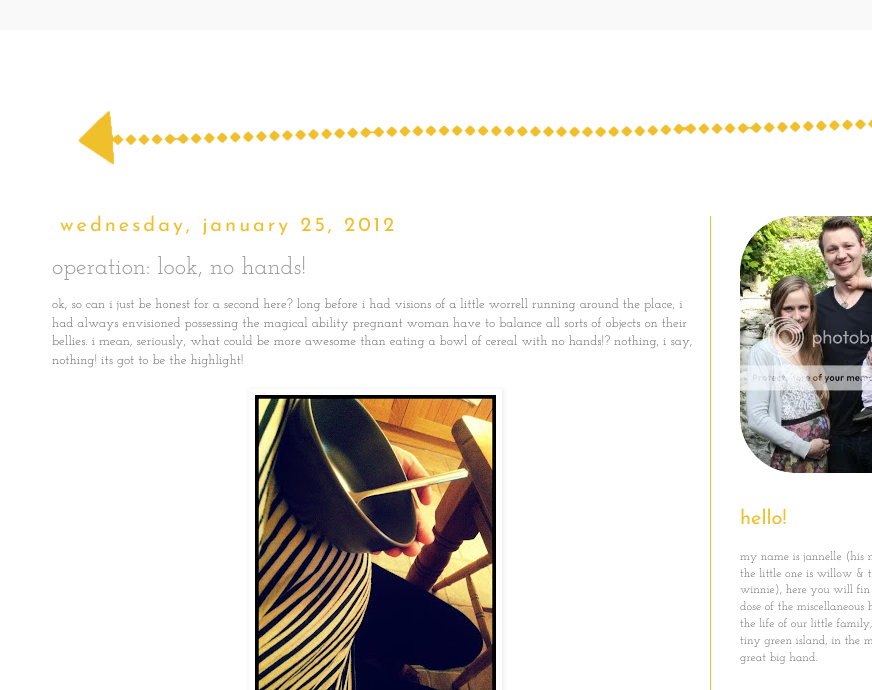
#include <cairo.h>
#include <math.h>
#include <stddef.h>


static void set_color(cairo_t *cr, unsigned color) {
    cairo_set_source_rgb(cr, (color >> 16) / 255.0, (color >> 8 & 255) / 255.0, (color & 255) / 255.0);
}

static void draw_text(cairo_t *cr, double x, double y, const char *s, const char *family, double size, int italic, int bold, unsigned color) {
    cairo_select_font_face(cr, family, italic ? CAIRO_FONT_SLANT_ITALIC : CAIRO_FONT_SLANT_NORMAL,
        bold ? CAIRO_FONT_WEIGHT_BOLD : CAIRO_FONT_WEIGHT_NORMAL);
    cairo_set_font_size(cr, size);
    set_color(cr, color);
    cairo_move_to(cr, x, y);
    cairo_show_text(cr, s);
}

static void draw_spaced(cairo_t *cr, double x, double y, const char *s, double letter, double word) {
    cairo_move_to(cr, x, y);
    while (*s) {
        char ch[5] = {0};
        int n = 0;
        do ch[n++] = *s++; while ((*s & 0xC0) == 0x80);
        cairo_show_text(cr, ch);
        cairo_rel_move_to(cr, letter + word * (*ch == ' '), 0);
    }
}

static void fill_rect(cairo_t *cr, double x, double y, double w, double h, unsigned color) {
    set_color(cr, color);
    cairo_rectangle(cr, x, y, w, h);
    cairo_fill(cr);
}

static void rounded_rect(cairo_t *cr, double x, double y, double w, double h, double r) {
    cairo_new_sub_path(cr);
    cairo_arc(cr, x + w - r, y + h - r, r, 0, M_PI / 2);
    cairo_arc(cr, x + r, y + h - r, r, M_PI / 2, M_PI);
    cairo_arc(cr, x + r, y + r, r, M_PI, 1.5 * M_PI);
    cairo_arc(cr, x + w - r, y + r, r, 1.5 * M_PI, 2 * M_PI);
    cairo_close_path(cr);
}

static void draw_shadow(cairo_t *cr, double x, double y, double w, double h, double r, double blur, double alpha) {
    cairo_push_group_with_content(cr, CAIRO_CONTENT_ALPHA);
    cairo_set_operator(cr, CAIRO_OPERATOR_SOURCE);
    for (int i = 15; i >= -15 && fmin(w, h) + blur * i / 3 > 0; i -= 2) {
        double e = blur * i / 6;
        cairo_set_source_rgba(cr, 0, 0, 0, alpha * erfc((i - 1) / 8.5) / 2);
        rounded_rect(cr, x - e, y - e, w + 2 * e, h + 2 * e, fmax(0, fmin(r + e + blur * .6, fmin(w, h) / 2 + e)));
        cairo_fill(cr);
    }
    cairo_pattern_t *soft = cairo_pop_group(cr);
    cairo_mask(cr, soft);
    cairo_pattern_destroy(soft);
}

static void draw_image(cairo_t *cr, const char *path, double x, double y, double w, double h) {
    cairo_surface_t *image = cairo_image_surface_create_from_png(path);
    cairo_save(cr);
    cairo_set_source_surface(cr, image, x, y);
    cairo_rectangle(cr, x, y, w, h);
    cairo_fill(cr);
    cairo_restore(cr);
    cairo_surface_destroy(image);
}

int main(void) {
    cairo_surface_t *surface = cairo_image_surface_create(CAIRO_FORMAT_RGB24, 872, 690);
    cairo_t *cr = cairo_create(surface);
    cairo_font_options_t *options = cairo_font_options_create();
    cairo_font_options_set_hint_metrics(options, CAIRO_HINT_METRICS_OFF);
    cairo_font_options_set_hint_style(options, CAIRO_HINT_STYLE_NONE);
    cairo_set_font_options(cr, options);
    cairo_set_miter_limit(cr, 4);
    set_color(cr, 0xF9F9F9);
    cairo_paint(cr);
    fill_rect(cr, 0, 30, 872, 660, 0xFFFFFF);
    draw_image(cr, "assets/img1.png", 78, 110, 794, 55);
    cairo_select_font_face(cr, "Josefin Sans", CAIRO_FONT_SLANT_NORMAL, CAIRO_FONT_WEIGHT_NORMAL);
    cairo_set_font_size(cr, 20);
    set_color(cr, 0xF0BF2C);
    draw_spaced(cr, 60, 231, "wednesday, january 25, 2012", 3, 0);
    draw_text(cr, 52, 274, "operation: look, no hands!", "Josefin Slab", 24, 0, 0, 0x999999);
    draw_text(cr, 52, 308, "ok, so can i just be honest for a second here? long before i had visions of a little worrell running around the place, i", "Josefin Slab", 13.2, 0, 0, 0x666666);
    draw_text(cr, 52, 327, "had always envisioned possessing the magical ability pregnant woman have to balance all sorts of objects on their", "Josefin Slab", 13.2, 0, 0, 0x666666);
    draw_text(cr, 52, 345, "bellies. i mean, seriously, what could be more awesome than eating a bowl of cereal with no hands!? nothing, i say,", "Josefin Slab", 13.2, 0, 0, 0x666666);
    draw_text(cr, 52, 364, "nothing! its got to be the highlight!", "Josefin Slab", 13.2, 0, 0, 0x666666);
    cairo_save(cr);
    cairo_set_fill_rule(cr, CAIRO_FILL_RULE_EVEN_ODD);
    cairo_new_path(cr);
    cairo_move_to(cr, 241, 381);
    cairo_line_to(cr, 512, 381);
    cairo_line_to(cr, 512, 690);
    cairo_line_to(cr, 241, 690);
    cairo_close_path(cr);
    cairo_move_to(cr, 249, 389);
    cairo_line_to(cr, 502, 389);
    cairo_line_to(cr, 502, 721);
    cairo_line_to(cr, 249, 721);
    cairo_close_path(cr);
    cairo_clip(cr);
    set_color(cr, 0x000000);
    draw_shadow(cr, 250, 390, 253, 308, 0, 2.5, 0.1);
    cairo_restore(cr);
    draw_image(cr, "assets/img2.png", 255, 395, 241, 295);
    draw_image(cr, "assets/img3.png", 740, 216, 132, 257);
    draw_text(cr, 740, 524, "hello!", "Josefin Sans", 20, 0, 0, 0xF0BF2C);
    draw_text(cr, 740, 560, "my name is jannelle (his n", "Josefin Slab", 12, 0, 0, 0x666666);
    draw_text(cr, 740, 577, "the little one is willow & t", "Josefin Slab", 12, 0, 0, 0x666666);
    draw_text(cr, 740, 593, "winnie), here you will fin", "Josefin Slab", 12, 0, 0, 0x666666);
    draw_text(cr, 740, 610, "dose of the miscellaneous h", "Josefin Slab", 12, 0, 0, 0x666666);
    draw_text(cr, 740, 627, "the life of our little family,", "Josefin Slab", 12, 0, 0, 0x666666);
    draw_text(cr, 740, 644, "tiny green island, in the m", "Josefin Slab", 12, 0, 0, 0x666666);
    draw_text(cr, 740, 661, "great big hand.", "Josefin Slab", 12, 0, 0, 0x666666);
    fill_rect(cr, 710, 216, 1, 474, 0xF0BF2C);
    cairo_surface_write_to_png(surface, "output.png");
    cairo_font_options_destroy(options);
    cairo_destroy(cr);
    cairo_surface_destroy(surface);
    return 0;
}
